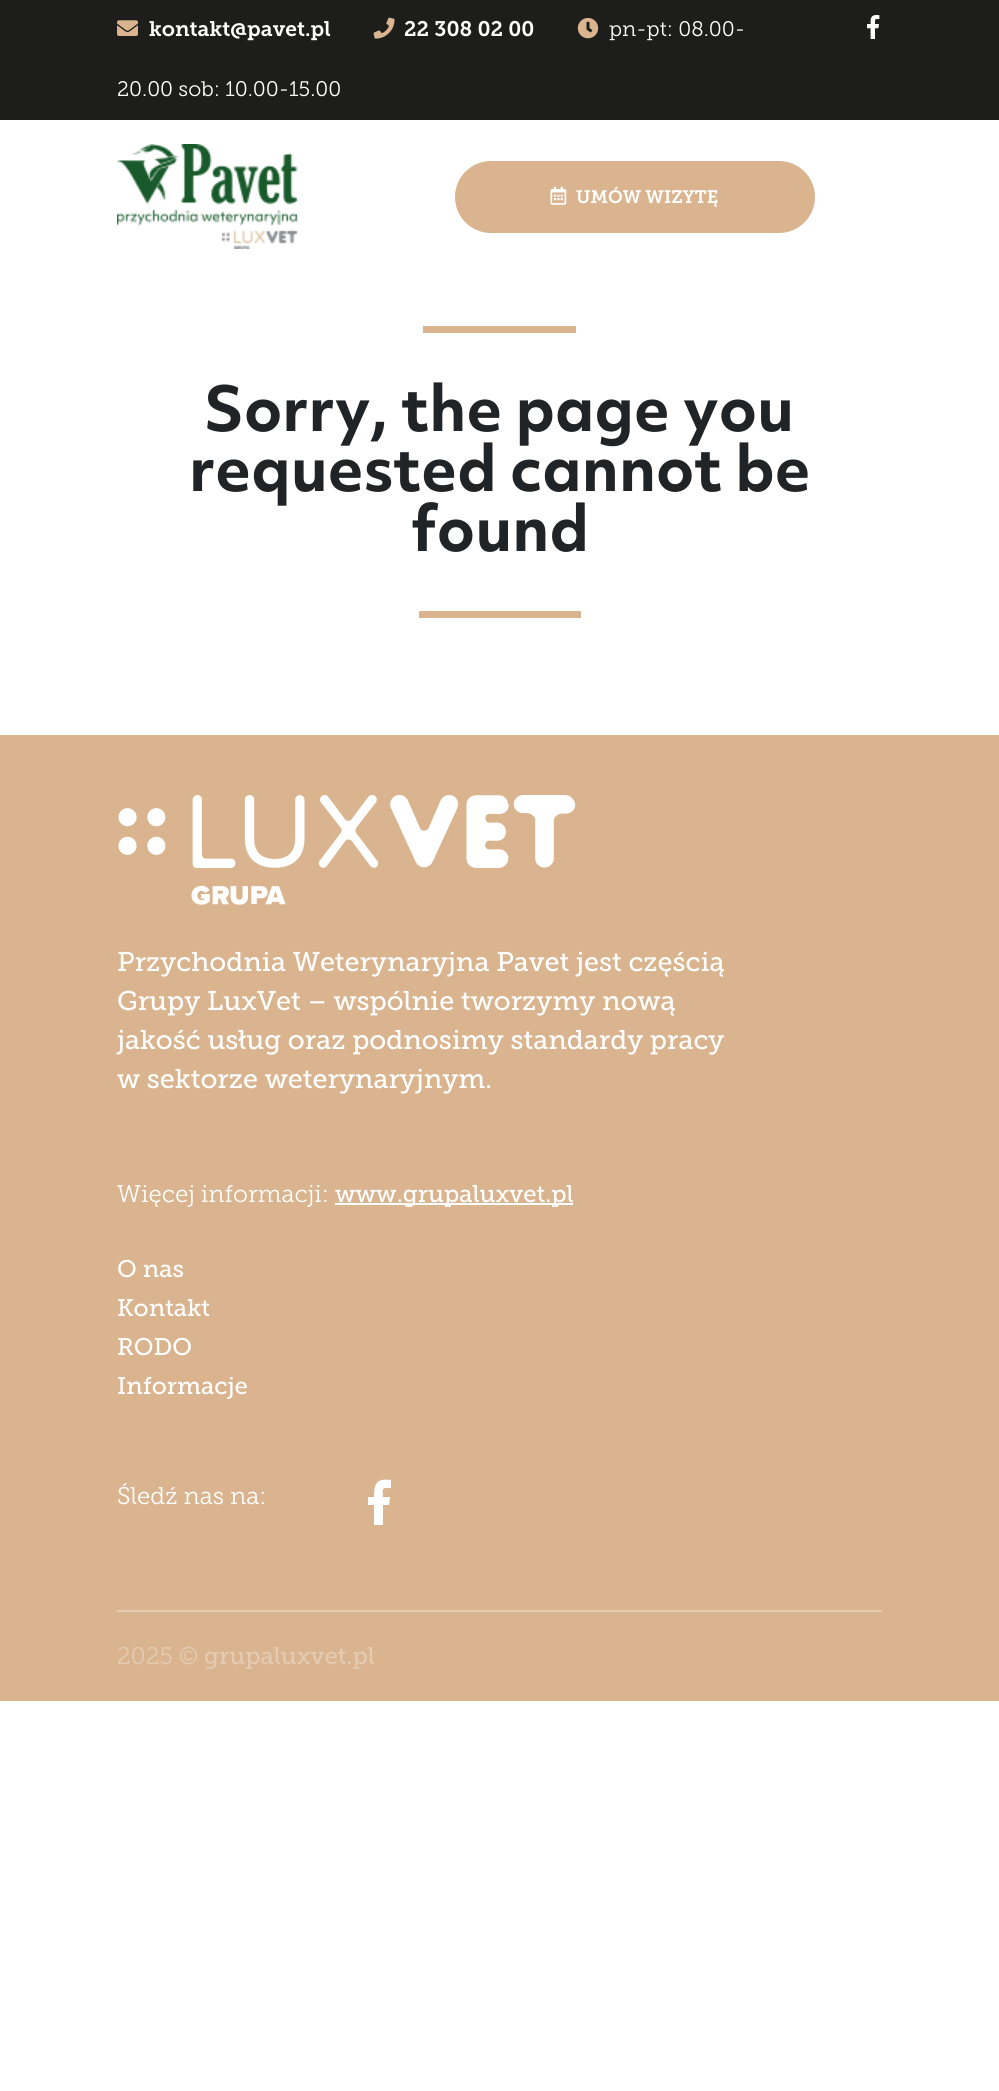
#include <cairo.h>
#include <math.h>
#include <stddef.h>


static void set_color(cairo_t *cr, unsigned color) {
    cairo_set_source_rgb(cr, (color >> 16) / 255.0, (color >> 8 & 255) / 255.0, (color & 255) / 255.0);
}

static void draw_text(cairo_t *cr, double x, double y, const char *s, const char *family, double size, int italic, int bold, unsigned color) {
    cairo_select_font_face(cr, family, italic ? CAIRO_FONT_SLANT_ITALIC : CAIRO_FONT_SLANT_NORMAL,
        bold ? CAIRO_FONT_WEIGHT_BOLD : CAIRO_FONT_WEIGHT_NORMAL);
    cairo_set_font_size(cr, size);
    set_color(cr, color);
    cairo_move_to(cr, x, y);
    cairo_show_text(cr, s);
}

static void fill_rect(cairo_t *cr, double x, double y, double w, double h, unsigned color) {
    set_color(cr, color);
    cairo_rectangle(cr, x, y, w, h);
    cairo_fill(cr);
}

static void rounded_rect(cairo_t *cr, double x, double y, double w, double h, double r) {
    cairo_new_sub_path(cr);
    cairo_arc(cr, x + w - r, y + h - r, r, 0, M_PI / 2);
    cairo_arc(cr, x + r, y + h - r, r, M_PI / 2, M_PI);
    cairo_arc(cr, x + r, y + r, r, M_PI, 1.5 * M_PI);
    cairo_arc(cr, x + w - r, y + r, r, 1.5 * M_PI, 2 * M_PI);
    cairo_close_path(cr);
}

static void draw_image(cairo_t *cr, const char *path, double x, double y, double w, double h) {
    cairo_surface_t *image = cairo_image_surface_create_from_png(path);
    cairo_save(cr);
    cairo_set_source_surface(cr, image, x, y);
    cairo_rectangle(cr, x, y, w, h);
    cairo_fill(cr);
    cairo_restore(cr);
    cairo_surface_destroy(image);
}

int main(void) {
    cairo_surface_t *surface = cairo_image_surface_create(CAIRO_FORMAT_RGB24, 999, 2091);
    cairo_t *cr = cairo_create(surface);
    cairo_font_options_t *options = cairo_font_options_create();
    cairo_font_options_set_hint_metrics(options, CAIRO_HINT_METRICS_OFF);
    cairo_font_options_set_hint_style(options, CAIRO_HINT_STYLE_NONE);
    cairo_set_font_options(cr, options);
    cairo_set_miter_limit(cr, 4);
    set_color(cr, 0xFFFFFF);
    cairo_paint(cr);
    fill_rect(cr, 0, 0, 999, 120, 0x1D1D1B);
    draw_image(cr, "assets/img1.png", 117, 20, 21, 16);
    draw_text(cr, 149, 36, "kontakt@pavet.pl", "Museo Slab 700 SemiBold", 21, 0, 0, 0xFFFFFF);
    draw_image(cr, "assets/img2.png", 373, 17, 22, 22);
    draw_text(cr, 404, 36, "22 308 02 00", "Museo Slab 700 SemiBold", 21, 0, 0, 0xFFFFFF);
    draw_image(cr, "assets/img3.png", 577, 18, 22, 21);
    draw_text(cr, 609, 36, "pn-pt: 08.00-", "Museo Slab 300 Light", 21, 0, 0, 0xFFFFFF);
    draw_text(cr, 117, 96, "20.00 sob: 10.00-15.00", "Museo Slab 300 Light", 21, 0, 0, 0xFFFFFF);
    draw_image(cr, "assets/img4.png", 867, 15, 13, 24);
    draw_image(cr, "assets/img5.png", 117, 144, 181, 105);
    set_color(cr, 0xD9B48F);
    rounded_rect(cr, 456.5, 162.5, 357, 69, 34.5);
    cairo_fill_preserve(cr);
    cairo_set_line_width(cr, 3);
    cairo_stroke(cr);
    draw_image(cr, "assets/img6.png", 550, 186, 17, 19);
    draw_text(cr, 576, 203, "UMÓW WIZYTĘ", "Museo Slab 700 SemiBold", 18, 0, 0, 0xFFFFFF);
    fill_rect(cr, 423, 326, 153, 7, 0xD9B48F);
    draw_text(cr, 204, 431, "Sorry, the page you", "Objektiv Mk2", 60, 0, 1, 0x202426);
    draw_text(cr, 189, 491, "requested cannot be", "Objektiv Mk2", 60, 0, 1, 0x202426);
    draw_text(cr, 411, 551, "found", "Objektiv Mk2", 60, 0, 1, 0x202426);
    fill_rect(cr, 419, 611, 162, 7, 0xD9B48F);
    fill_rect(cr, 0, 735, 999, 966, 0xD9B48F);
    draw_image(cr, "assets/img7.png", 118, 795, 458, 110);
    draw_text(cr, 117, 971, "Przychodnia Weterynaryjna Pavet jest częścią", "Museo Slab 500", 27, 0, 0, 0xFFFFFF);
    draw_text(cr, 117, 1010, "Grupy LuxVet – wspólnie tworzymy nową", "Museo Slab 500", 27, 0, 0, 0xFFFFFF);
    draw_text(cr, 117, 1049, "jakość usług oraz podnosimy standardy pracy", "Museo Slab 500", 27, 0, 0, 0xFFFFFF);
    draw_text(cr, 117, 1088, "w sektorze weterynaryjnym.", "Museo Slab 500", 27, 0, 0, 0xFFFFFF);
    draw_text(cr, 117, 1202, "Więcej informacji:", "Museo Slab 300 Light", 24, 0, 0, 0xFFFFFF);
    fill_rect(cr, 335, 1203, 238, 2, 0xFFFFFF);
    draw_text(cr, 335, 1202, "www.grupaluxvet.pl", "Museo Slab 500", 24, 0, 0, 0xFFFFFF);
    draw_text(cr, 117, 1277, "O nas", "Museo Slab 500", 24, 0, 0, 0xFFFFFF);
    draw_text(cr, 117, 1316, "Kontakt", "Museo Slab 500", 24, 0, 0, 0xFFFFFF);
    draw_text(cr, 117, 1355, "RODO", "Museo Slab 500", 24, 0, 0, 0xFFFFFF);
    draw_text(cr, 117, 1394, "Informacje", "Museo Slab 500", 24, 0, 0, 0xFFFFFF);
    draw_text(cr, 117, 1504, "Śledź nas na:", "Museo Slab 300 Light", 24, 0, 0, 0xFFFFFF);
    cairo_new_path(cr);
    cairo_move_to(cr, 386, 1488);
    cairo_curve_to(cr, 381, 1488, 383, 1493, 383, 1497);
    cairo_line_to(cr, 390, 1497);
    cairo_line_to(cr, 389, 1505);
    cairo_line_to(cr, 383, 1505);
    cairo_line_to(cr, 383, 1525);
    cairo_line_to(cr, 374, 1525);
    cairo_line_to(cr, 374, 1505);
    cairo_line_to(cr, 368, 1505);
    cairo_line_to(cr, 368, 1497);
    cairo_line_to(cr, 374, 1497);
    cairo_curve_to(cr, 374, 1484, 376, 1478, 391, 1480);
    cairo_line_to(cr, 391, 1488);
    cairo_close_path(cr);
    cairo_fill(cr);
    fill_rect(cr, 117, 1610, 765, 2, 0xE4CBB1);
    draw_text(cr, 117, 1664, "2025 ©", "Museo Slab 300 Light", 24, 0, 0, 0xE4CBB1);
    draw_text(cr, 204, 1664, "grupaluxvet.pl", "Museo Slab 500", 24, 0, 0, 0xE4CBB1);
    cairo_surface_write_to_png(surface, "output.png");
    cairo_font_options_destroy(options);
    cairo_destroy(cr);
    cairo_surface_destroy(surface);
    return 0;
}
